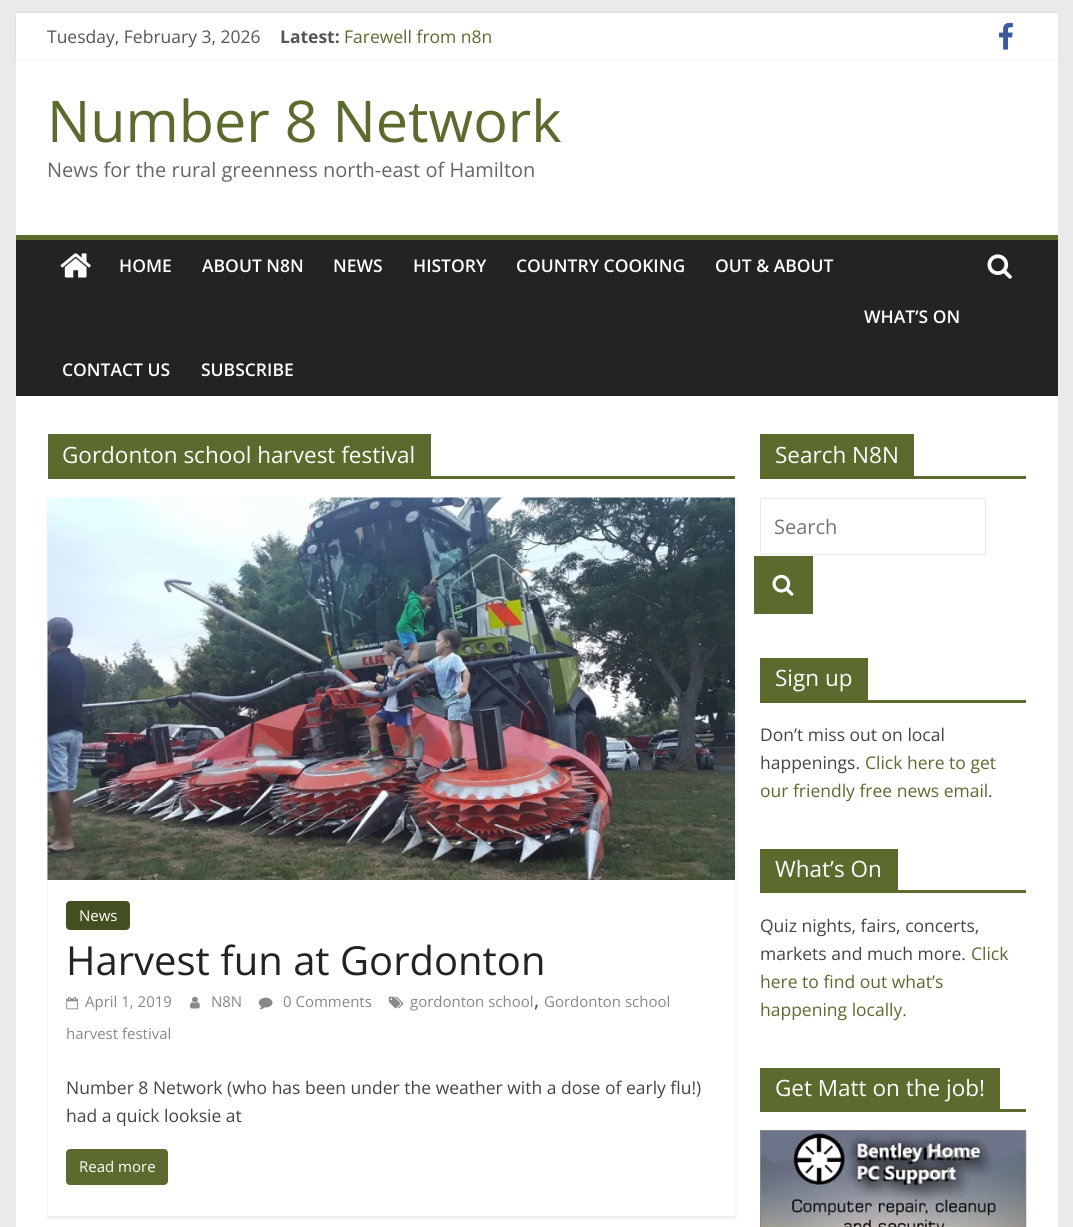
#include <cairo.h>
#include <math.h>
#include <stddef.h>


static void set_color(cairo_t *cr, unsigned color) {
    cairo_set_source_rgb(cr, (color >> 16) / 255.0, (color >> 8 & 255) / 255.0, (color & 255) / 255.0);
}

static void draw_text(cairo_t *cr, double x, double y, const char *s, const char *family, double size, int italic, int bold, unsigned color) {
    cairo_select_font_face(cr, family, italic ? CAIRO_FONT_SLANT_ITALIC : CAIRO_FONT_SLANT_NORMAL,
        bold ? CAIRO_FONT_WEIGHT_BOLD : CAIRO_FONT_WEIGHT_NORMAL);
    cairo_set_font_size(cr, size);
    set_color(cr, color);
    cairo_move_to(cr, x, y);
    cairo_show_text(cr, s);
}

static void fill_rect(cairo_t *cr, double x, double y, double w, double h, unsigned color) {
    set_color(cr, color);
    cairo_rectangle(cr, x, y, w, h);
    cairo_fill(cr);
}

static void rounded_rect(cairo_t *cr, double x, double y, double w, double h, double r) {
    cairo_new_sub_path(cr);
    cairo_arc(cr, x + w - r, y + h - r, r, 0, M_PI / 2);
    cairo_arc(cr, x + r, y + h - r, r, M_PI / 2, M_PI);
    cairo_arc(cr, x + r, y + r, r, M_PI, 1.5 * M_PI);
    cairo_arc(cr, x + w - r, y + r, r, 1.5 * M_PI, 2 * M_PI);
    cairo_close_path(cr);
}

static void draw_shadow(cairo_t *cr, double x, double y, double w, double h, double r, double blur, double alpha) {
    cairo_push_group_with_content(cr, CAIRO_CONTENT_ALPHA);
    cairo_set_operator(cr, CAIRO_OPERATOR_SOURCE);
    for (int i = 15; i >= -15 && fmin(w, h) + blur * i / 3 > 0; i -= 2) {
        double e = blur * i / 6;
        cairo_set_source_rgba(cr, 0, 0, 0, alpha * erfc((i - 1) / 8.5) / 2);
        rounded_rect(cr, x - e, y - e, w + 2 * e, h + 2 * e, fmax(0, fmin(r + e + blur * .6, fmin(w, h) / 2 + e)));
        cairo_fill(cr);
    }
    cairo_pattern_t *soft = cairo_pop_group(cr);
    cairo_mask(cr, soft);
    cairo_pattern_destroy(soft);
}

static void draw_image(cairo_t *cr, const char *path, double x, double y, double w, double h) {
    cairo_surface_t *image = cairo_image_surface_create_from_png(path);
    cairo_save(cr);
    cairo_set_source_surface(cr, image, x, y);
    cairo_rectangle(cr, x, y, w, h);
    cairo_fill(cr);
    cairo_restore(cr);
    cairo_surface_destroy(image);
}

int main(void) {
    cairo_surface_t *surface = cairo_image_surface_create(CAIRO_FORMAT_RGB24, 1073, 1227);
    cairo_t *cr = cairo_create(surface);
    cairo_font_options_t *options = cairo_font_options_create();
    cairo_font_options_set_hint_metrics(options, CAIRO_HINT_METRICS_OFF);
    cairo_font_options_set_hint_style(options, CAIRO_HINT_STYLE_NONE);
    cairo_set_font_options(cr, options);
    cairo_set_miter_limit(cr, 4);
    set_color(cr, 0xEAEAEA);
    cairo_paint(cr);
    fill_rect(cr, 16, 60, 1042, 175, 0xFFFFFF);
    set_color(cr, 0x000000);
    draw_shadow(cr, 16, 13, 1042, 47, 0, 1, 0.1);
    fill_rect(cr, 16, 13, 1042, 47, 0xFFFFFF);
    draw_text(cr, 47, 43, "Tuesday, February 3, 2026", "Open Sans", 17.5, 0, 0, 0x555555);
    draw_text(cr, 280, 43, "Latest:", "Open Sans", 17.5, 0, 1, 0x555555);
    draw_text(cr, 344, 43, "Farewell from n8n", "Open Sans", 17.5, 0, 0, 0x5B6A2D);
    draw_image(cr, "assets/img1.png", 999, 22, 14, 28);
    draw_text(cr, 47, 142, "Number 8 Network", "Open Sans", 57.5, 0, 0, 0x5B6A2D);
    draw_text(cr, 47, 177, "News for the rural greenness north-east of Hamilton", "Open Sans", 20, 0, 0, 0x666666);
    fill_rect(cr, 16, 240, 1042, 156, 0x232323);
    fill_rect(cr, 16, 235, 1042, 5, 0x5B6A2D);
    draw_image(cr, "assets/img2.png", 60, 253, 31, 25);
    draw_image(cr, "assets/img3.png", 987, 254, 25, 25);
    draw_text(cr, 119, 272, "HOME", "Open Sans SemiBold", 17.5, 0, 0, 0xFFFFFF);
    draw_text(cr, 202, 272, "ABOUT N8N", "Open Sans SemiBold", 17.5, 0, 0, 0xFFFFFF);
    draw_text(cr, 333, 272, "NEWS", "Open Sans SemiBold", 17.5, 0, 0, 0xFFFFFF);
    draw_text(cr, 413, 272, "HISTORY", "Open Sans SemiBold", 17.5, 0, 0, 0xFFFFFF);
    draw_text(cr, 516, 272, "COUNTRY COOKING", "Open Sans SemiBold", 17.5, 0, 0, 0xFFFFFF);
    draw_text(cr, 715, 272, "OUT & ABOUT", "Open Sans SemiBold", 17.5, 0, 0, 0xFFFFFF);
    draw_text(cr, 864, 323, "WHAT’S ON", "Open Sans SemiBold", 17.5, 0, 0, 0xFFFFFF);
    draw_text(cr, 62, 376, "CONTACT US", "Open Sans SemiBold", 17.5, 0, 0, 0xFFFFFF);
    draw_text(cr, 201, 376, "SUBSCRIBE", "Open Sans SemiBold", 17.5, 0, 0, 0xFFFFFF);
    fill_rect(cr, 16, 396, 1042, 831, 0xFFFFFF);
    fill_rect(cr, 48, 476, 687, 3, 0x5B6A2D);
    fill_rect(cr, 48, 434, 383, 42, 0x5B6A2D);
    draw_text(cr, 62, 463, "Gordonton school harvest festival", "Open Sans", 22.5, 0, 0, 0xFFFFFF);
    cairo_save(cr);
    cairo_set_fill_rule(cr, CAIRO_FILL_RULE_EVEN_ODD);
    cairo_new_path(cr);
    cairo_move_to(cr, 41, 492);
    cairo_line_to(cr, 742, 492);
    cairo_line_to(cr, 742, 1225);
    cairo_line_to(cr, 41, 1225);
    cairo_close_path(cr);
    cairo_move_to(cr, 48, 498);
    cairo_line_to(cr, 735, 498);
    cairo_line_to(cr, 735, 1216);
    cairo_line_to(cr, 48, 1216);
    cairo_close_path(cr);
    cairo_clip(cr);
    set_color(cr, 0x000000);
    draw_shadow(cr, 48, 499, 687, 719, 0, 2, 0.1);
    cairo_restore(cr);
    draw_image(cr, "assets/img4.png", 47, 497, 688, 383);
    set_color(cr, 0x444F22);
    rounded_rect(cr, 66, 901, 64, 29, 4);
    cairo_fill(cr);
    draw_text(cr, 79, 921, "News", "Open Sans", 15, 0, 0, 0xFFFFFF);
    draw_text(cr, 66, 975, "Harvest fun at Gordonton", "Open Sans", 40, 0, 0, 0x232323);
    draw_image(cr, "assets/img5.png", 388, 996, 16, 13);
    draw_text(cr, 410, 1007, "gordonton school", "Open Sans", 15, 0, 0, 0x888888);
    draw_text(cr, 534, 1007, ",", "Open Sans", 20, 0, 0, 0x444444);
    draw_text(cr, 544, 1007, "Gordonton school", "Open Sans", 15, 0, 0, 0x888888);
    draw_text(cr, 66, 1039, "harvest festival", "Open Sans", 15, 0, 0, 0x888888);
    draw_image(cr, "assets/img6.png", 66, 996, 12, 14);
    draw_text(cr, 85, 1007, "April 1, 2019", "Open Sans", 15, 0, 0, 0x888888);
    draw_image(cr, "assets/img7.png", 190, 996, 10, 13);
    draw_text(cr, 211, 1007, "N8N", "Open Sans", 15, 0, 0, 0x888888);
    draw_image(cr, "assets/img8.png", 258, 997, 15, 13);
    draw_text(cr, 283, 1007, "0 Comments", "Open Sans", 15, 0, 0, 0x888888);
    draw_text(cr, 66, 1094, "Number 8 Network (who has been under the weather with a dose of early flu!)", "Open Sans", 17.5, 0, 0, 0x444444);
    draw_text(cr, 66, 1122, "had a quick looksie at", "Open Sans", 17.5, 0, 0, 0x444444);
    set_color(cr, 0x5B6A2D);
    rounded_rect(cr, 66, 1149, 102, 36, 4);
    cairo_fill(cr);
    draw_text(cr, 79, 1172, "Read more", "Open Sans", 15, 0, 0, 0xFFFFFF);
    fill_rect(cr, 760, 476, 266, 3, 0x5B6A2D);
    fill_rect(cr, 760, 434, 154, 42, 0x5B6A2D);
    draw_text(cr, 775, 463, "Search N8N", "Open Sans", 22.5, 0, 0, 0xFFFFFF);
    cairo_rectangle(cr, 760.5, 498.5, 225, 56);
    set_color(cr, 0xEAEAEA);
    cairo_set_line_width(cr, 1);
    cairo_stroke(cr);
    draw_text(cr, 774, 534, "Search", "Open Sans", 20, 0, 0, 0x757575);
    fill_rect(cr, 754, 556, 59, 58, 0x5B6A2D);
    draw_image(cr, "assets/img9.png", 772, 574, 22, 22);
    fill_rect(cr, 760, 700, 266, 3, 0x5B6A2D);
    fill_rect(cr, 760, 658, 108, 42, 0x5B6A2D);
    draw_text(cr, 775, 686, "Sign up", "Open Sans", 22.5, 0, 0, 0xFFFFFF);
    draw_text(cr, 760, 741, "Don’t miss out on local", "Open Sans", 17.5, 0, 0, 0x444444);
    draw_text(cr, 760, 769, "happenings.", "Open Sans", 17.5, 0, 0, 0x444444);
    draw_text(cr, 865, 769, "Click here to get", "Open Sans", 17.5, 0, 0, 0x5B6A2D);
    draw_text(cr, 760, 797, "our friendly free news email", "Open Sans", 17.5, 0, 0, 0x5B6A2D);
    draw_text(cr, 988, 797, ".", "Open Sans", 17.5, 0, 0, 0x444444);
    fill_rect(cr, 760, 890, 266, 3, 0x5B6A2D);
    fill_rect(cr, 760, 849, 138, 41, 0x5B6A2D);
    draw_text(cr, 775, 877, "What’s On", "Open Sans", 22.5, 0, 0, 0xFFFFFF);
    draw_text(cr, 760, 932, "Quiz nights, fairs, concerts,", "Open Sans", 17.5, 0, 0, 0x444444);
    draw_text(cr, 760, 960, "markets and much more.", "Open Sans", 17.5, 0, 0, 0x444444);
    draw_text(cr, 971, 960, "Click", "Open Sans", 17.5, 0, 0, 0x5B6A2D);
    draw_text(cr, 760, 988, "here to find out what’s", "Open Sans", 17.5, 0, 0, 0x5B6A2D);
    draw_text(cr, 760, 1016, "happening locally.", "Open Sans", 17.5, 0, 0, 0x5B6A2D);
    fill_rect(cr, 760, 1109, 266, 3, 0x5B6A2D);
    fill_rect(cr, 760, 1068, 240, 41, 0x5B6A2D);
    draw_text(cr, 775, 1096, "Get Matt on the job!", "Open Sans", 22.5, 0, 0, 0xFFFFFF);
    draw_image(cr, "assets/img10.png", 760, 1130, 267, 97);
    cairo_surface_write_to_png(surface, "output.png");
    cairo_font_options_destroy(options);
    cairo_destroy(cr);
    cairo_surface_destroy(surface);
    return 0;
}
